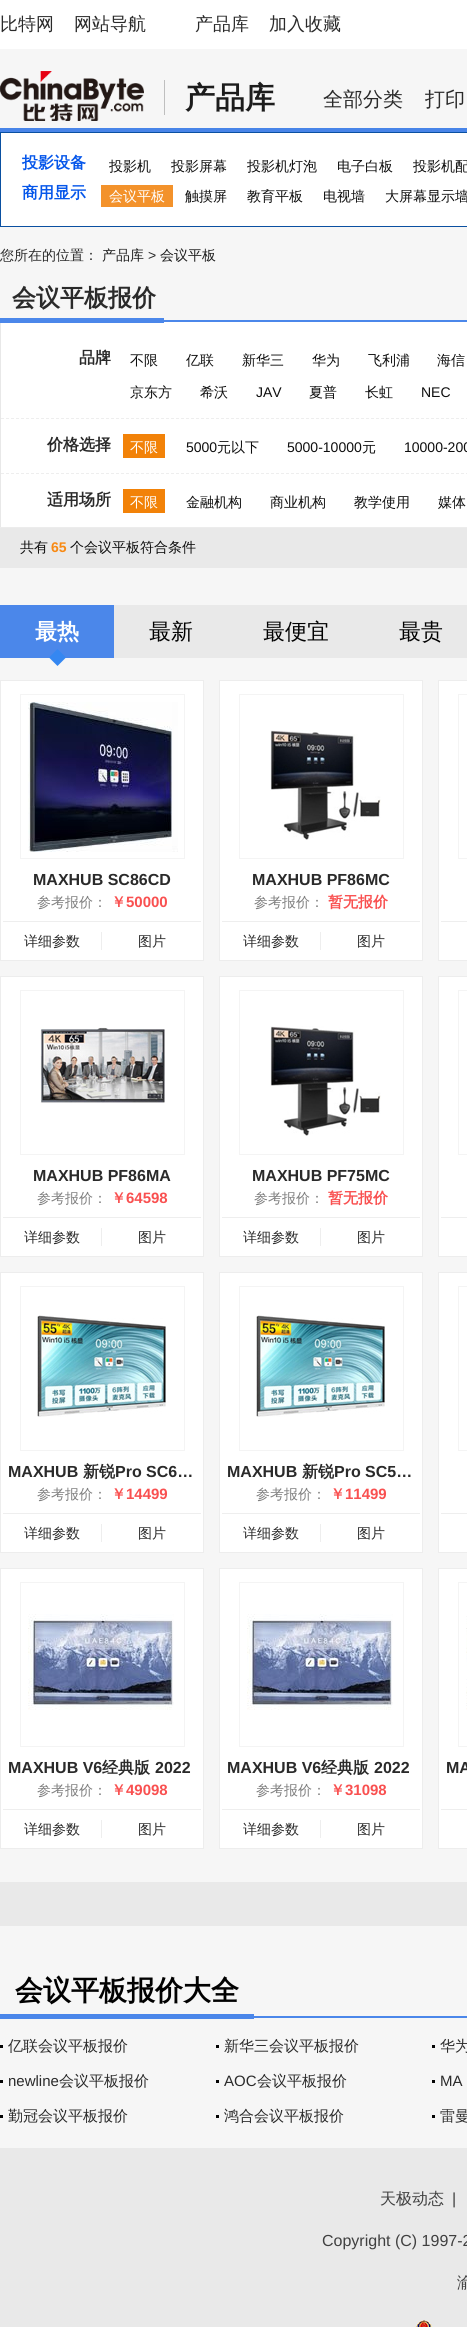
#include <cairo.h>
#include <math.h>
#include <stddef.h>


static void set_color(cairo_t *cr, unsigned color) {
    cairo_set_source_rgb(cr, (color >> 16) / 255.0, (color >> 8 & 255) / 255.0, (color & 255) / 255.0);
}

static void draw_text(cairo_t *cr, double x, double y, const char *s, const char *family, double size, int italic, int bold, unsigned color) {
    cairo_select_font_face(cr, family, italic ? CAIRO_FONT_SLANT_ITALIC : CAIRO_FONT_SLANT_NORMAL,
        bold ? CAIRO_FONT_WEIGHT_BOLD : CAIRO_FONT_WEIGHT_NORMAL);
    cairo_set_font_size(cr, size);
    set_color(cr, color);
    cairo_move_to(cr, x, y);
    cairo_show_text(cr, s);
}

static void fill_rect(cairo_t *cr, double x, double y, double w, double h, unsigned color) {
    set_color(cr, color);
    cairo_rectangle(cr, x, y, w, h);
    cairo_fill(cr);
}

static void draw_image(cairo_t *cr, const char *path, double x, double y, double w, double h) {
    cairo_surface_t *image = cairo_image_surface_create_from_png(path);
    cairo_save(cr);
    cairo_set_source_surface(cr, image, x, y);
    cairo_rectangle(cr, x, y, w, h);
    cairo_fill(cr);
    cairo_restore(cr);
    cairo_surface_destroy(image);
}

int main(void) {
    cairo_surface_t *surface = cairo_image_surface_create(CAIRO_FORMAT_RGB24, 467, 2327);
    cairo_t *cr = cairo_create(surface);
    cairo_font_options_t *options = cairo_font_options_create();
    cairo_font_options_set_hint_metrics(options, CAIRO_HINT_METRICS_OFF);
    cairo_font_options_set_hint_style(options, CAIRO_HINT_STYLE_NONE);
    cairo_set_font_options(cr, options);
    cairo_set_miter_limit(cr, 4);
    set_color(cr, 0xE9E9E9);
    cairo_paint(cr);
    fill_rect(cr, 0, 0, 467, 49, 0xFFFFFF);
    draw_text(cr, 0, 30, "比特网", "WenQuanYi Zen Hei Medium", 18, 0, 0, 0x2A2A2A);
    draw_text(cr, 74, 30, "网站导航", "WenQuanYi Zen Hei Medium", 18, 0, 0, 0x2A2A2A);
    draw_text(cr, 195, 30, "产品库", "WenQuanYi Zen Hei Medium", 18, 0, 0, 0x2A2A2A);
    draw_text(cr, 269, 30, "加入收藏", "WenQuanYi Zen Hei Medium", 18, 0, 0, 0x2A2A2A);
    fill_rect(cr, 0, 49, 467, 2099, 0xF6F6F6);
    fill_rect(cr, 0, 128, 467, 4, 0x4884E8);
    draw_image(cr, "assets/img1.png", 0, 71, 144, 50);
    fill_rect(cr, 164, 80, 1, 35, 0xBFBFBF);
    draw_text(cr, 185, 108, "产品库", "WenQuanYi Zen Hei", 30, 0, 1, 0x1C1C1C);
    draw_text(cr, 323, 106, "全部分类", "WenQuanYi Zen Hei Medium", 20, 0, 0, 0x2A2A2A);
    draw_text(cr, 425, 106, "打印", "WenQuanYi Zen Hei Medium", 20, 0, 0, 0x2A2A2A);
    set_color(cr, 0xFFFFFF);
    cairo_rectangle(cr, 0.5, 132.5, 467, 94);
    cairo_fill_preserve(cr);
    set_color(cr, 0x0A50A1);
    cairo_set_line_width(cr, 1);
    cairo_stroke(cr);
    draw_text(cr, 22, 168, "投影设备", "WenQuanYi Zen Hei", 16, 0, 1, 0x0556EA);
    draw_text(cr, 109, 171, "投影机", "WenQuanYi Zen Hei Medium", 14, 0, 0, 0x0E0E0E);
    draw_text(cr, 171, 171, "投影屏幕", "WenQuanYi Zen Hei Medium", 14, 0, 0, 0x0E0E0E);
    draw_text(cr, 247, 171, "投影机灯泡", "WenQuanYi Zen Hei Medium", 14, 0, 0, 0x0E0E0E);
    draw_text(cr, 337, 171, "电子白板", "WenQuanYi Zen Hei Medium", 14, 0, 0, 0x0E0E0E);
    draw_text(cr, 413, 171, "投影机配", "WenQuanYi Zen Hei Medium", 14, 0, 0, 0x0E0E0E);
    draw_text(cr, 22, 198, "商用显示", "WenQuanYi Zen Hei", 16, 0, 1, 0x0556EA);
    fill_rect(cr, 101, 185, 72, 22, 0xF3922B);
    draw_text(cr, 109, 201, "会议平板", "WenQuanYi Zen Hei Medium", 14, 0, 0, 0xFFFFFF);
    draw_text(cr, 185, 201, "触摸屏", "WenQuanYi Zen Hei Medium", 14, 0, 0, 0x0E0E0E);
    draw_text(cr, 247, 201, "教育平板", "WenQuanYi Zen Hei Medium", 14, 0, 0, 0x0E0E0E);
    draw_text(cr, 323, 201, "电视墙", "WenQuanYi Zen Hei Medium", 14, 0, 0, 0x0E0E0E);
    draw_text(cr, 385, 201, "大屏幕显示墙", "WenQuanYi Zen Hei Medium", 14, 0, 0, 0x0E0E0E);
    draw_text(cr, 0, 260, "您所在的位置：", "WenQuanYi Zen Hei Medium", 14, 0, 0, 0x2A2A2A);
    draw_text(cr, 102, 260, "产品库", "WenQuanYi Zen Hei Medium", 14, 0, 0, 0x1C1C1C);
    draw_text(cr, 148, 260, ">", "Liberation Sans", 14, 0, 0, 0x2A2A2A);
    draw_text(cr, 160, 260, "会议平板", "WenQuanYi Zen Hei Medium", 14, 0, 0, 0x1C1C1C);
    fill_rect(cr, 164, 320, 303, 2, 0x4B87EA);
    draw_text(cr, 12, 306, "会议平板报价", "WenQuanYi Zen Hei", 24, 0, 1, 0x2A2A2A);
    fill_rect(cr, 1, 322, 466, 205, 0xFFFFFF);
    fill_rect(cr, 0, 322, 1, 206, 0xE8E8E8);
    fill_rect(cr, 0, 318, 164, 5, 0x4B87EA);
    cairo_new_path(cr);
    cairo_move_to(cr, 1, 418.5);
    cairo_line_to(cr, 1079, 418.5);
    set_color(cr, 0xEEEEEE);
    cairo_set_dash(cr, (double[]){3, 2}, 2, 0);
    cairo_stroke(cr);
    draw_text(cr, 79, 363, "品牌", "WenQuanYi Zen Hei", 16, 0, 1, 0x2A2A2A);
    draw_text(cr, 130, 365, "不限", "WenQuanYi Zen Hei Medium", 14, 0, 0, 0x0E0E0E);
    draw_text(cr, 186, 365, "亿联", "WenQuanYi Zen Hei Medium", 14, 0, 0, 0x0E0E0E);
    draw_text(cr, 242, 365, "新华三", "WenQuanYi Zen Hei Medium", 14, 0, 0, 0x0E0E0E);
    draw_text(cr, 312, 365, "华为", "WenQuanYi Zen Hei Medium", 14, 0, 0, 0x0E0E0E);
    draw_text(cr, 368, 365, "飞利浦", "WenQuanYi Zen Hei Medium", 14, 0, 0, 0x0E0E0E);
    draw_text(cr, 437, 365, "海信", "WenQuanYi Zen Hei Medium", 14, 0, 0, 0x0E0E0E);
    draw_text(cr, 130, 397, "京东方", "WenQuanYi Zen Hei Medium", 14, 0, 0, 0x0E0E0E);
    draw_text(cr, 200, 397, "希沃", "WenQuanYi Zen Hei Medium", 14, 0, 0, 0x0E0E0E);
    draw_text(cr, 256, 397, "JAV", "Liberation Sans", 14, 0, 0, 0x0E0E0E);
    draw_text(cr, 309, 397, "夏普", "WenQuanYi Zen Hei Medium", 14, 0, 0, 0x0E0E0E);
    draw_text(cr, 365, 397, "长虹", "WenQuanYi Zen Hei Medium", 14, 0, 0, 0x0E0E0E);
    draw_text(cr, 421, 397, "NEC", "Liberation Sans", 14, 0, 0, 0x0E0E0E);
    cairo_new_path(cr);
    cairo_move_to(cr, 1, 473.5);
    cairo_line_to(cr, 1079, 473.5);
    set_color(cr, 0xEEEEEE);
    cairo_stroke(cr);
    draw_text(cr, 47, 450, "价格选择", "WenQuanYi Zen Hei", 16, 0, 1, 0x2A2A2A);
    fill_rect(cr, 123, 434, 42, 24, 0xF28208);
    draw_text(cr, 130, 452, "不限", "WenQuanYi Zen Hei Medium", 14, 0, 0, 0xFFFFFF);
    draw_text(cr, 186, 452, "5000", "Liberation Sans", 14, 0, 0, 0x0E0E0E);
    draw_text(cr, 217, 452, "元以下", "WenQuanYi Zen Hei Medium", 14, 0, 0, 0x0E0E0E);
    draw_text(cr, 287, 452, "5000-10000", "Liberation Sans", 14, 0, 0, 0x0E0E0E);
    draw_text(cr, 362, 452, "元", "WenQuanYi Zen Hei Medium", 14, 0, 0, 0x0E0E0E);
    draw_text(cr, 404, 452, "10000-200", "Liberation Sans", 14, 0, 0, 0x0E0E0E);
    draw_text(cr, 47, 505, "适用场所", "WenQuanYi Zen Hei", 16, 0, 1, 0x2A2A2A);
    fill_rect(cr, 123, 489, 42, 24, 0xF28208);
    draw_text(cr, 130, 507, "不限", "WenQuanYi Zen Hei Medium", 14, 0, 0, 0xFFFFFF);
    draw_text(cr, 186, 507, "金融机构", "WenQuanYi Zen Hei Medium", 14, 0, 0, 0x0E0E0E);
    draw_text(cr, 270, 507, "商业机构", "WenQuanYi Zen Hei Medium", 14, 0, 0, 0x0E0E0E);
    draw_text(cr, 354, 507, "教学使用", "WenQuanYi Zen Hei Medium", 14, 0, 0, 0x0E0E0E);
    draw_text(cr, 438, 507, "媒体", "WenQuanYi Zen Hei Medium", 14, 0, 0, 0x0E0E0E);
    fill_rect(cr, 0, 528, 467, 40, 0xE9E9E9);
    fill_rect(cr, 0, 527, 467, 1, 0xECECEC);
    draw_text(cr, 20, 552, "共有", "WenQuanYi Zen Hei Medium", 14, 0, 0, 0x0E0E0E);
    draw_text(cr, 51, 552, "65", "Liberation Sans", 14, 0, 1, 0xF88912);
    draw_text(cr, 70, 552, "个会议平板符合条件", "WenQuanYi Zen Hei Medium", 14, 0, 0, 0x0E0E0E);
    fill_rect(cr, 114, 605, 353, 53, 0xE9E9E9);
    fill_rect(cr, 0, 605, 114, 53, 0x4B87EA);
    draw_text(cr, 35, 639, "最热", "WenQuanYi Zen Hei", 22, 0, 1, 0xFFFFFF);
    draw_image(cr, "assets/img2.png", 49, 649, 17, 17);
    draw_text(cr, 149, 639, "最新", "WenQuanYi Zen Hei Medium", 22, 0, 0, 0x010101);
    draw_text(cr, 263, 639, "最便宜", "WenQuanYi Zen Hei Medium", 22, 0, 0, 0x010101);
    draw_text(cr, 399, 639, "最贵", "WenQuanYi Zen Hei Medium", 22, 0, 0, 0x010101);
    set_color(cr, 0xFFFFFF);
    cairo_rectangle(cr, 0.5, 680.5, 203, 280);
    cairo_fill_preserve(cr);
    set_color(cr, 0xEDEDED);
    cairo_set_dash(cr, NULL, 0, 0);
    cairo_stroke(cr);
    cairo_rectangle(cr, 20.5, 694.5, 164, 164);
    set_color(cr, 0xF4F4F4);
    cairo_stroke(cr);
    draw_image(cr, "assets/img3.png", 28, 702, 150, 150);
    draw_text(cr, 33, 885, "MAXHUB SC86CD", "Liberation Sans", 16, 0, 1, 0x2A2A2A);
    draw_text(cr, 37, 907, "参考报价：", "WenQuanYi Zen Hei Medium", 14, 0, 0, 0x7F7F7F);
    draw_text(cr, 111, 907, "￥", "WenQuanYi Zen Hei", 15, 0, 1, 0xF95050);
    draw_text(cr, 126, 907, "50000", "Liberation Sans", 15, 0, 1, 0xF95050);
    fill_rect(cr, 3, 921, 198, 1, 0xEEEEEE);
    fill_rect(cr, 101, 932, 1, 18, 0xEEEEEE);
    draw_text(cr, 24, 946, "详细参数", "WenQuanYi Zen Hei Medium", 14, 0, 0, 0x2A2A2A);
    draw_text(cr, 138, 946, "图片", "WenQuanYi Zen Hei Medium", 14, 0, 0, 0x2A2A2A);
    set_color(cr, 0xFFFFFF);
    cairo_rectangle(cr, 219.5, 680.5, 203, 280);
    cairo_fill_preserve(cr);
    set_color(cr, 0xEDEDED);
    cairo_stroke(cr);
    cairo_rectangle(cr, 239.5, 694.5, 164, 164);
    set_color(cr, 0xF4F4F4);
    cairo_stroke(cr);
    draw_image(cr, "assets/img4.png", 270, 730, 111, 110);
    draw_text(cr, 252, 885, "MAXHUB PF86MC", "Liberation Sans", 16, 0, 1, 0x2A2A2A);
    draw_text(cr, 254, 907, "参考报价：", "WenQuanYi Zen Hei Medium", 14, 0, 0, 0x7F7F7F);
    draw_text(cr, 328, 907, "暂无报价", "WenQuanYi Zen Hei", 15, 0, 1, 0xF95050);
    fill_rect(cr, 222, 921, 198, 1, 0xEEEEEE);
    fill_rect(cr, 320, 932, 1, 18, 0xEEEEEE);
    draw_text(cr, 243, 946, "详细参数", "WenQuanYi Zen Hei Medium", 14, 0, 0, 0x2A2A2A);
    draw_text(cr, 357, 946, "图片", "WenQuanYi Zen Hei Medium", 14, 0, 0, 0x2A2A2A);
    set_color(cr, 0xFFFFFF);
    cairo_rectangle(cr, 438.5, 680.5, 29, 280);
    cairo_fill_preserve(cr);
    set_color(cr, 0xEDEDED);
    cairo_stroke(cr);
    cairo_rectangle(cr, 458.5, 694.5, 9, 164);
    set_color(cr, 0xF4F4F4);
    cairo_stroke(cr);
    fill_rect(cr, 441, 921, 26, 1, 0xEEEEEE);
    set_color(cr, 0xFFFFFF);
    cairo_rectangle(cr, 0.5, 976.5, 203, 280);
    cairo_fill_preserve(cr);
    set_color(cr, 0xEDEDED);
    cairo_stroke(cr);
    cairo_rectangle(cr, 20.5, 990.5, 164, 164);
    set_color(cr, 0xF4F4F4);
    cairo_stroke(cr);
    draw_image(cr, "assets/img5.png", 40, 1027, 125, 76);
    draw_text(cr, 33, 1181, "MAXHUB PF86MA", "Liberation Sans", 16, 0, 1, 0x2A2A2A);
    draw_text(cr, 37, 1203, "参考报价：", "WenQuanYi Zen Hei Medium", 14, 0, 0, 0x7F7F7F);
    draw_text(cr, 111, 1203, "￥", "WenQuanYi Zen Hei", 15, 0, 1, 0xF95050);
    draw_text(cr, 126, 1203, "64598", "Liberation Sans", 15, 0, 1, 0xF95050);
    fill_rect(cr, 3, 1217, 198, 1, 0xEEEEEE);
    fill_rect(cr, 101, 1228, 1, 18, 0xEEEEEE);
    draw_text(cr, 24, 1242, "详细参数", "WenQuanYi Zen Hei Medium", 14, 0, 0, 0x2A2A2A);
    draw_text(cr, 138, 1242, "图片", "WenQuanYi Zen Hei Medium", 14, 0, 0, 0x2A2A2A);
    set_color(cr, 0xFFFFFF);
    cairo_rectangle(cr, 219.5, 976.5, 203, 280);
    cairo_fill_preserve(cr);
    set_color(cr, 0xEDEDED);
    cairo_stroke(cr);
    cairo_rectangle(cr, 239.5, 990.5, 164, 164);
    set_color(cr, 0xF4F4F4);
    cairo_stroke(cr);
    draw_image(cr, "assets/img4.png", 270, 1026, 111, 110);
    draw_text(cr, 252, 1181, "MAXHUB PF75MC", "Liberation Sans", 16, 0, 1, 0x2A2A2A);
    draw_text(cr, 254, 1203, "参考报价：", "WenQuanYi Zen Hei Medium", 14, 0, 0, 0x7F7F7F);
    draw_text(cr, 328, 1203, "暂无报价", "WenQuanYi Zen Hei", 15, 0, 1, 0xF95050);
    fill_rect(cr, 222, 1217, 198, 1, 0xEEEEEE);
    fill_rect(cr, 320, 1228, 1, 18, 0xEEEEEE);
    draw_text(cr, 243, 1242, "详细参数", "WenQuanYi Zen Hei Medium", 14, 0, 0, 0x2A2A2A);
    draw_text(cr, 357, 1242, "图片", "WenQuanYi Zen Hei Medium", 14, 0, 0, 0x2A2A2A);
    set_color(cr, 0xFFFFFF);
    cairo_rectangle(cr, 438.5, 976.5, 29, 280);
    cairo_fill_preserve(cr);
    set_color(cr, 0xEDEDED);
    cairo_stroke(cr);
    cairo_rectangle(cr, 458.5, 990.5, 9, 164);
    set_color(cr, 0xF4F4F4);
    cairo_stroke(cr);
    fill_rect(cr, 441, 1217, 26, 1, 0xEEEEEE);
    set_color(cr, 0xFFFFFF);
    cairo_rectangle(cr, 0.5, 1272.5, 203, 280);
    cairo_fill_preserve(cr);
    set_color(cr, 0xEDEDED);
    cairo_stroke(cr);
    cairo_rectangle(cr, 20.5, 1286.5, 164, 164);
    set_color(cr, 0xF4F4F4);
    cairo_stroke(cr);
    draw_image(cr, "assets/img6.png", 37, 1315, 129, 102);
    draw_text(cr, 8, 1477, "MAXHUB", "Liberation Sans", 16, 0, 1, 0x2A2A2A);
    draw_text(cr, 83, 1477, "新锐", "WenQuanYi Zen Hei", 16, 0, 1, 0x2A2A2A);
    draw_text(cr, 115, 1477, "Pro SC6…", "Liberation Sans", 16, 0, 1, 0x2A2A2A);
    draw_text(cr, 37, 1499, "参考报价：", "WenQuanYi Zen Hei Medium", 14, 0, 0, 0x7F7F7F);
    draw_text(cr, 111, 1499, "￥", "WenQuanYi Zen Hei", 15, 0, 1, 0xF95050);
    draw_text(cr, 126, 1499, "14499", "Liberation Sans", 15, 0, 1, 0xF95050);
    fill_rect(cr, 3, 1513, 198, 1, 0xEEEEEE);
    fill_rect(cr, 101, 1524, 1, 18, 0xEEEEEE);
    draw_text(cr, 24, 1538, "详细参数", "WenQuanYi Zen Hei Medium", 14, 0, 0, 0x2A2A2A);
    draw_text(cr, 138, 1538, "图片", "WenQuanYi Zen Hei Medium", 14, 0, 0, 0x2A2A2A);
    set_color(cr, 0xFFFFFF);
    cairo_rectangle(cr, 219.5, 1272.5, 203, 280);
    cairo_fill_preserve(cr);
    set_color(cr, 0xEDEDED);
    cairo_stroke(cr);
    cairo_rectangle(cr, 239.5, 1286.5, 164, 164);
    set_color(cr, 0xF4F4F4);
    cairo_stroke(cr);
    draw_image(cr, "assets/img6.png", 256, 1315, 129, 102);
    draw_text(cr, 227, 1477, "MAXHUB", "Liberation Sans", 16, 0, 1, 0x2A2A2A);
    draw_text(cr, 302, 1477, "新锐", "WenQuanYi Zen Hei", 16, 0, 1, 0x2A2A2A);
    draw_text(cr, 334, 1477, "Pro SC5…", "Liberation Sans", 16, 0, 1, 0x2A2A2A);
    draw_text(cr, 256, 1499, "参考报价：", "WenQuanYi Zen Hei Medium", 14, 0, 0, 0x7F7F7F);
    draw_text(cr, 330, 1499, "￥", "WenQuanYi Zen Hei", 15, 0, 1, 0xF95050);
    draw_text(cr, 345, 1499, "11499", "Liberation Sans", 15, 0, 1, 0xF95050);
    fill_rect(cr, 222, 1513, 198, 1, 0xEEEEEE);
    fill_rect(cr, 320, 1524, 1, 18, 0xEEEEEE);
    draw_text(cr, 243, 1538, "详细参数", "WenQuanYi Zen Hei Medium", 14, 0, 0, 0x2A2A2A);
    draw_text(cr, 357, 1538, "图片", "WenQuanYi Zen Hei Medium", 14, 0, 0, 0x2A2A2A);
    set_color(cr, 0xFFFFFF);
    cairo_rectangle(cr, 438.5, 1272.5, 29, 280);
    cairo_fill_preserve(cr);
    set_color(cr, 0xEDEDED);
    cairo_stroke(cr);
    cairo_rectangle(cr, 458.5, 1286.5, 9, 164);
    set_color(cr, 0xF4F4F4);
    cairo_stroke(cr);
    fill_rect(cr, 441, 1513, 26, 1, 0xEEEEEE);
    set_color(cr, 0xFFFFFF);
    cairo_rectangle(cr, 0.5, 1568.5, 203, 280);
    cairo_fill_preserve(cr);
    set_color(cr, 0xEDEDED);
    cairo_stroke(cr);
    cairo_rectangle(cr, 20.5, 1582.5, 164, 164);
    set_color(cr, 0xF4F4F4);
    cairo_stroke(cr);
    draw_image(cr, "assets/img7.png", 28, 1614, 146, 96);
    draw_text(cr, 8, 1773, "MAXHUB V6", "Liberation Sans", 16, 0, 1, 0x2A2A2A);
    draw_text(cr, 102, 1773, "经典版", "WenQuanYi Zen Hei", 16, 0, 1, 0x2A2A2A);
    draw_text(cr, 155, 1773, "2022", "Liberation Sans", 16, 0, 1, 0x2A2A2A);
    draw_text(cr, 37, 1795, "参考报价：", "WenQuanYi Zen Hei Medium", 14, 0, 0, 0x7F7F7F);
    draw_text(cr, 111, 1795, "￥", "WenQuanYi Zen Hei", 15, 0, 1, 0xF95050);
    draw_text(cr, 126, 1795, "49098", "Liberation Sans", 15, 0, 1, 0xF95050);
    fill_rect(cr, 3, 1809, 198, 1, 0xEEEEEE);
    fill_rect(cr, 101, 1820, 1, 18, 0xEEEEEE);
    draw_text(cr, 24, 1834, "详细参数", "WenQuanYi Zen Hei Medium", 14, 0, 0, 0x2A2A2A);
    draw_text(cr, 138, 1834, "图片", "WenQuanYi Zen Hei Medium", 14, 0, 0, 0x2A2A2A);
    set_color(cr, 0xFFFFFF);
    cairo_rectangle(cr, 219.5, 1568.5, 203, 280);
    cairo_fill_preserve(cr);
    set_color(cr, 0xEDEDED);
    cairo_stroke(cr);
    cairo_rectangle(cr, 239.5, 1582.5, 164, 164);
    set_color(cr, 0xF4F4F4);
    cairo_stroke(cr);
    draw_image(cr, "assets/img7.png", 247, 1614, 146, 96);
    draw_text(cr, 227, 1773, "MAXHUB V6", "Liberation Sans", 16, 0, 1, 0x2A2A2A);
    draw_text(cr, 321, 1773, "经典版", "WenQuanYi Zen Hei", 16, 0, 1, 0x2A2A2A);
    draw_text(cr, 374, 1773, "2022", "Liberation Sans", 16, 0, 1, 0x2A2A2A);
    draw_text(cr, 256, 1795, "参考报价：", "WenQuanYi Zen Hei Medium", 14, 0, 0, 0x7F7F7F);
    draw_text(cr, 330, 1795, "￥", "WenQuanYi Zen Hei", 15, 0, 1, 0xF95050);
    draw_text(cr, 345, 1795, "31098", "Liberation Sans", 15, 0, 1, 0xF95050);
    fill_rect(cr, 222, 1809, 198, 1, 0xEEEEEE);
    fill_rect(cr, 320, 1820, 1, 18, 0xEEEEEE);
    draw_text(cr, 243, 1834, "详细参数", "WenQuanYi Zen Hei Medium", 14, 0, 0, 0x2A2A2A);
    draw_text(cr, 357, 1834, "图片", "WenQuanYi Zen Hei Medium", 14, 0, 0, 0x2A2A2A);
    set_color(cr, 0xFFFFFF);
    cairo_rectangle(cr, 438.5, 1568.5, 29, 280);
    cairo_fill_preserve(cr);
    set_color(cr, 0xEDEDED);
    cairo_stroke(cr);
    cairo_rectangle(cr, 458.5, 1582.5, 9, 164);
    set_color(cr, 0xF4F4F4);
    cairo_stroke(cr);
    draw_image(cr, "assets/img8.png", 466, 1616, 1, 94);
    draw_text(cr, 446, 1773, "MA", "Liberation Sans", 16, 0, 1, 0x2A2A2A);
    fill_rect(cr, 441, 1809, 26, 1, 0xEEEEEE);
    fill_rect(cr, 0, 1882, 467, 44, 0xE9E9E9);
    fill_rect(cr, 254, 2016, 213, 2, 0x4B87EA);
    draw_text(cr, 15, 2000, "会议平板报价大全", "WenQuanYi Zen Hei", 28, 0, 1, 0x010101);
    fill_rect(cr, 0, 2014, 254, 5, 0x4B87EA);
    fill_rect(cr, 0, 2045, 3, 3, 0x040404);
    draw_text(cr, 8, 2051, "亿联会议平板报价", "WenQuanYi Zen Hei Medium", 15, 0, 0, 0x2A2A2A);
    fill_rect(cr, 216, 2045, 3, 3, 0x040404);
    draw_text(cr, 224, 2051, "新华三会议平板报价", "WenQuanYi Zen Hei Medium", 15, 0, 0, 0x2A2A2A);
    fill_rect(cr, 432, 2045, 3, 3, 0x040404);
    draw_text(cr, 440, 2051, "华为", "WenQuanYi Zen Hei Medium", 15, 0, 0, 0x2A2A2A);
    fill_rect(cr, 0, 2080, 3, 3, 0x040404);
    draw_text(cr, 8, 2086, "newline", "Liberation Sans", 15, 0, 0, 0x2A2A2A);
    draw_text(cr, 59, 2086, "会议平板报价", "WenQuanYi Zen Hei Medium", 15, 0, 0, 0x2A2A2A);
    fill_rect(cr, 216, 2080, 3, 3, 0x040404);
    draw_text(cr, 224, 2086, "AOC", "Liberation Sans", 15, 0, 0, 0x2A2A2A);
    draw_text(cr, 257, 2086, "会议平板报价", "WenQuanYi Zen Hei Medium", 15, 0, 0, 0x2A2A2A);
    fill_rect(cr, 432, 2080, 3, 3, 0x040404);
    draw_text(cr, 440, 2086, "MA", "Liberation Sans", 15, 0, 0, 0x2A2A2A);
    fill_rect(cr, 0, 2115, 3, 3, 0x040404);
    draw_text(cr, 8, 2121, "勤冠会议平板报价", "WenQuanYi Zen Hei Medium", 15, 0, 0, 0x2A2A2A);
    fill_rect(cr, 216, 2115, 3, 3, 0x040404);
    draw_text(cr, 224, 2121, "鸿合会议平板报价", "WenQuanYi Zen Hei Medium", 15, 0, 0, 0x2A2A2A);
    fill_rect(cr, 432, 2115, 3, 3, 0x040404);
    draw_text(cr, 440, 2121, "雷曼", "WenQuanYi Zen Hei Medium", 15, 0, 0, 0x2A2A2A);
    draw_text(cr, 380, 2204, "天极动态", "WenQuanYi Zen Hei Medium", 16, 0, 0, 0x404040);
    draw_text(cr, 452, 2204, "|", "Liberation Sans", 16, 0, 0, 0x404040);
    draw_text(cr, 322, 2246, "Copyright (C) 1997-2", "Liberation Sans", 16, 0, 0, 0x404040);
    draw_text(cr, 457, 2288, "渝", "WenQuanYi Zen Hei Medium", 16, 0, 0, 0x404040);
    draw_image(cr, "assets/img9.png", 415, 2320, 17, 7);
    cairo_surface_write_to_png(surface, "output.png");
    cairo_font_options_destroy(options);
    cairo_destroy(cr);
    cairo_surface_destroy(surface);
    return 0;
}
